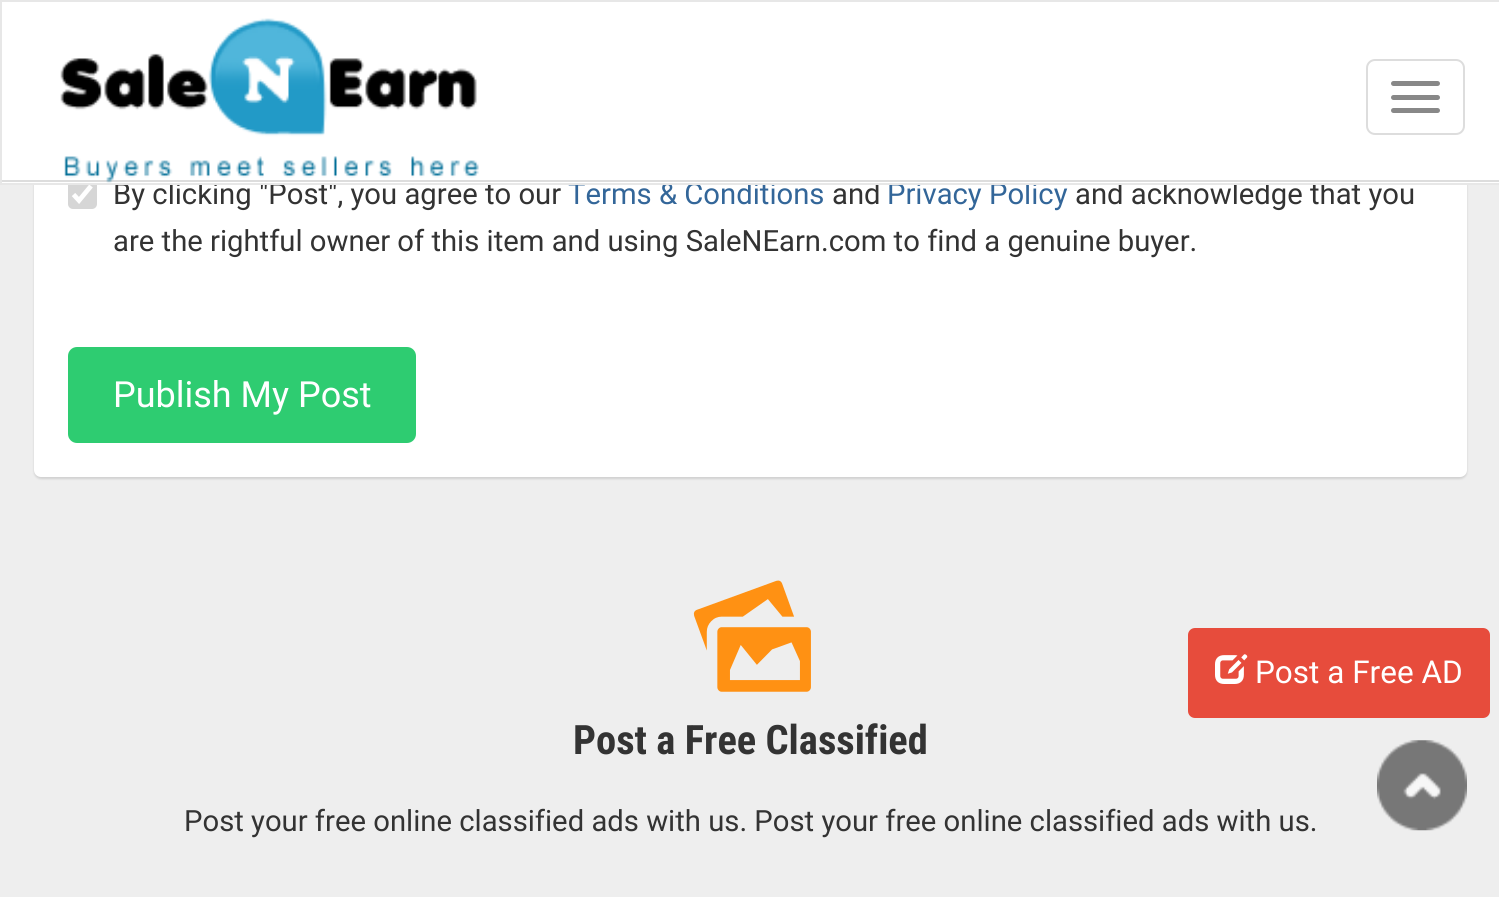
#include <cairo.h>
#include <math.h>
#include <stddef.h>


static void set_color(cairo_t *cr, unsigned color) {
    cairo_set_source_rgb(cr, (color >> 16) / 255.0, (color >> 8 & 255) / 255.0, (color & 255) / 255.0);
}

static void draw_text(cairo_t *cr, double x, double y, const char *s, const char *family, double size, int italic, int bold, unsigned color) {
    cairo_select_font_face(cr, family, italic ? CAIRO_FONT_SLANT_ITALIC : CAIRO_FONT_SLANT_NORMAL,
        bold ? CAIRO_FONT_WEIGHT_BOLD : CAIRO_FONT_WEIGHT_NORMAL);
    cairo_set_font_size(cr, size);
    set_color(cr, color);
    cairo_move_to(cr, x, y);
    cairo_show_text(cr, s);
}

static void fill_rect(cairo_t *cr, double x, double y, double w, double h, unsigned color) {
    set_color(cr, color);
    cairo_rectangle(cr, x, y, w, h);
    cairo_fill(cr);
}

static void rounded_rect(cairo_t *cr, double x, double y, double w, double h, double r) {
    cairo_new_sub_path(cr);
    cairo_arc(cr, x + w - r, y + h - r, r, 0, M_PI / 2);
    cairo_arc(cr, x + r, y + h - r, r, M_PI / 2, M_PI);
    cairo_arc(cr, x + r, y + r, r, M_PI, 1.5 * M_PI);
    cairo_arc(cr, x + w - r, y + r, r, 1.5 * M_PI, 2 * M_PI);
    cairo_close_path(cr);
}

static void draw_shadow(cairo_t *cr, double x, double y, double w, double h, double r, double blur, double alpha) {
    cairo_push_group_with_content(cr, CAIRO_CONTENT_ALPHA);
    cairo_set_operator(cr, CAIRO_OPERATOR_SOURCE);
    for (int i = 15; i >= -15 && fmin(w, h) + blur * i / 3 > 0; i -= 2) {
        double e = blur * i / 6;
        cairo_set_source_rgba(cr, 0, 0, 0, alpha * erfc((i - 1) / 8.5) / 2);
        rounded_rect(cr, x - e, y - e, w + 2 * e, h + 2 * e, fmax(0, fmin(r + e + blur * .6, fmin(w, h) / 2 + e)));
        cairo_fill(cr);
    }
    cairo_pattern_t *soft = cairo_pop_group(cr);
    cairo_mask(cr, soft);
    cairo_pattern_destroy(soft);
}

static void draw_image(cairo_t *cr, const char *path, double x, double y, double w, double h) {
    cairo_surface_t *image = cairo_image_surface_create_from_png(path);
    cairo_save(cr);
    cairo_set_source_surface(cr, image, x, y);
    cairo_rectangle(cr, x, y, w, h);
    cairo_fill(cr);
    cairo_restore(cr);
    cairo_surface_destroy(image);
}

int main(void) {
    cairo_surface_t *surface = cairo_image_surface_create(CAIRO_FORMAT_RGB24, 1499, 897);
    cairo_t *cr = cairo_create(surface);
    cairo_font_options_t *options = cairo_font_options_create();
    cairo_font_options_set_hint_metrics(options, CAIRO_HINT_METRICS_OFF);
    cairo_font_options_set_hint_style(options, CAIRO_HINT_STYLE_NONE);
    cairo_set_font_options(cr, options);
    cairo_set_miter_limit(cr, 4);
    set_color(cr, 0xEEEEEE);
    cairo_paint(cr);
    set_color(cr, 0xB4B4B4);
    draw_shadow(cr, 34, -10, 1433, 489, 7, 1, 0.5);
    set_color(cr, 0xFFFFFF);
    rounded_rect(cr, 34, -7, 1433, 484, 7);
    cairo_fill(cr);
    set_color(cr, 0xD6D6D6);
    rounded_rect(cr, 68, 180, 29, 29, 5);
    cairo_fill(cr);
    cairo_new_path(cr);
    cairo_move_to(cr, 73.5, 194.5);
    cairo_line_to(cr, 79, 200.5);
    cairo_line_to(cr, 91, 186);
    set_color(cr, 0xFFFFFF);
    cairo_set_line_width(cr, 4.7);
    cairo_stroke(cr);
    draw_text(cr, 113, 204, "By clicking \"Post\", you agree to our", "Roboto", 29.25, 0, 0, 0x333333);
    draw_text(cr, 568, 204, "Terms & Conditions", "Roboto", 29.25, 0, 0, 0x336699);
    draw_text(cr, 832, 204, "and", "Roboto", 29.25, 0, 0, 0x333333);
    draw_text(cr, 887, 204, "Privacy Policy", "Roboto", 29.25, 0, 0, 0x336699);
    draw_text(cr, 1075, 204, "and acknowledge that you", "Roboto", 29.25, 0, 0, 0x333333);
    set_color(cr, 0xFFFFFF);
    cairo_rectangle(cr, 1, 1, 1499, 183);
    cairo_fill_preserve(cr);
    set_color(cr, 0xE7E7E7);
    cairo_set_line_width(cr, 2);
    cairo_stroke(cr);
    fill_rect(cr, 2, 180, 1497, 2, 0xDDDDDD);
    draw_image(cr, "assets/img1.png", 60, 18, 419, 165);
    rounded_rect(cr, 1367, 60, 97, 74, 8);
    cairo_stroke(cr);
    set_color(cr, 0x888888);
    rounded_rect(cr, 1391, 81, 49, 5, 2.5);
    cairo_fill(cr);
    rounded_rect(cr, 1391, 95, 49, 5, 2.5);
    cairo_fill(cr);
    rounded_rect(cr, 1391, 108, 49, 5, 2.5);
    cairo_fill(cr);
    draw_text(cr, 113, 251, "are the rightful owner of this item and using SaleNEarn.com to find a genuine buyer.", "Roboto", 29.25, 0, 0, 0x333333);
    set_color(cr, 0x2ECC71);
    rounded_rect(cr, 68, 347, 348, 96, 9);
    cairo_fill(cr);
    draw_text(cr, 113, 407, "Publish My Post", "Roboto", 36, 0, 0, 0xFFFFFF);
    draw_image(cr, "assets/img2.png", 693, 580, 118, 112);
    draw_text(cr, 573, 754, "Post a Free Classified", "Roboto Condensed", 40.5, 0, 1, 0x333333);
    draw_text(cr, 184, 831, "Post your free online classified ads with us. Post your free online classified ads with us.", "Roboto", 29.25, 0, 0, 0x333333);
    set_color(cr, 0xE74C3C);
    rounded_rect(cr, 1188, 628, 302, 90, 7);
    cairo_fill(cr);
    draw_image(cr, "assets/img3.png", 1215, 654, 33, 30);
    draw_text(cr, 1255, 683, "Post a Free AD", "Roboto", 31.5, 0, 0, 0xFFFFFF);
    draw_image(cr, "assets/img4.png", 1377, 740, 90, 91);
    cairo_surface_write_to_png(surface, "output.png");
    cairo_font_options_destroy(options);
    cairo_destroy(cr);
    cairo_surface_destroy(surface);
    return 0;
}
